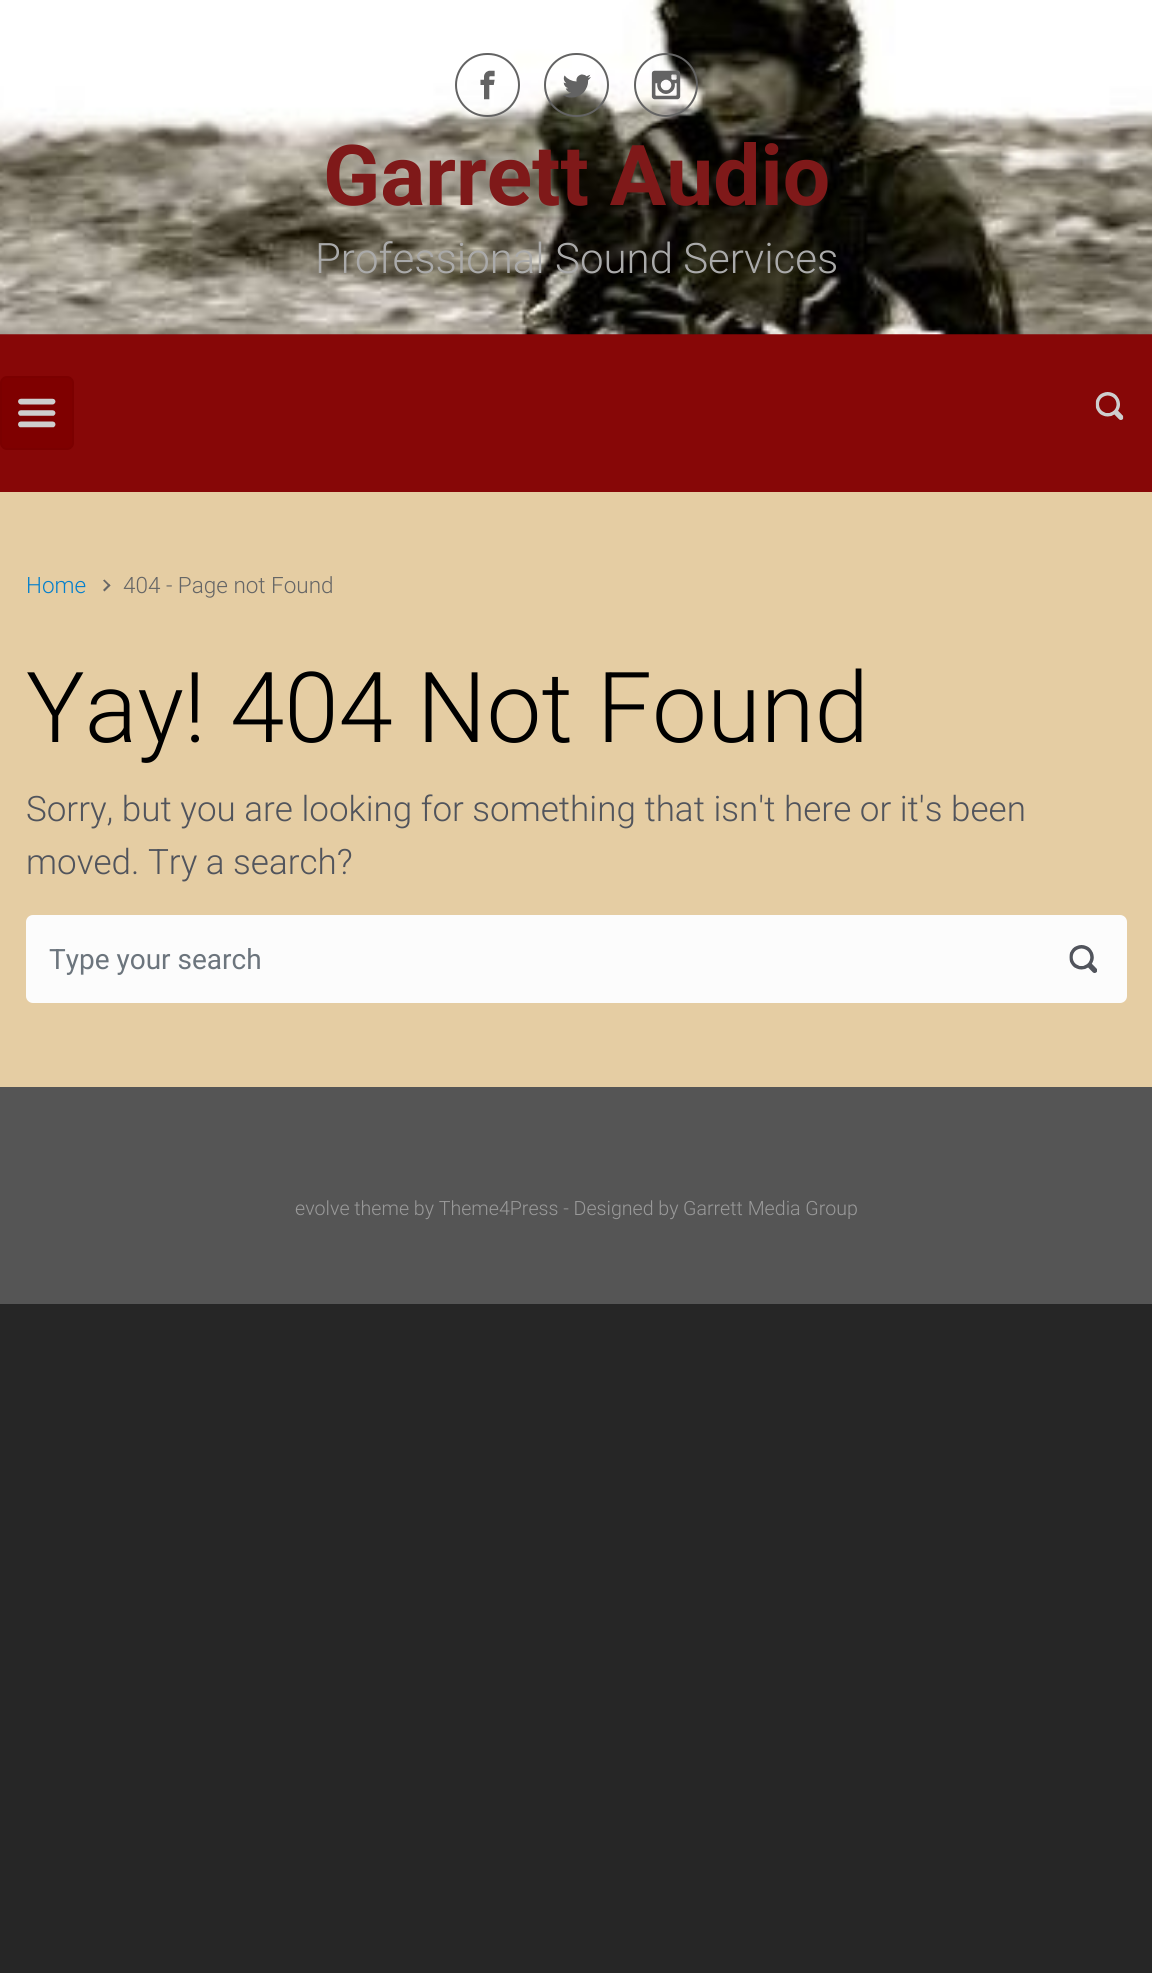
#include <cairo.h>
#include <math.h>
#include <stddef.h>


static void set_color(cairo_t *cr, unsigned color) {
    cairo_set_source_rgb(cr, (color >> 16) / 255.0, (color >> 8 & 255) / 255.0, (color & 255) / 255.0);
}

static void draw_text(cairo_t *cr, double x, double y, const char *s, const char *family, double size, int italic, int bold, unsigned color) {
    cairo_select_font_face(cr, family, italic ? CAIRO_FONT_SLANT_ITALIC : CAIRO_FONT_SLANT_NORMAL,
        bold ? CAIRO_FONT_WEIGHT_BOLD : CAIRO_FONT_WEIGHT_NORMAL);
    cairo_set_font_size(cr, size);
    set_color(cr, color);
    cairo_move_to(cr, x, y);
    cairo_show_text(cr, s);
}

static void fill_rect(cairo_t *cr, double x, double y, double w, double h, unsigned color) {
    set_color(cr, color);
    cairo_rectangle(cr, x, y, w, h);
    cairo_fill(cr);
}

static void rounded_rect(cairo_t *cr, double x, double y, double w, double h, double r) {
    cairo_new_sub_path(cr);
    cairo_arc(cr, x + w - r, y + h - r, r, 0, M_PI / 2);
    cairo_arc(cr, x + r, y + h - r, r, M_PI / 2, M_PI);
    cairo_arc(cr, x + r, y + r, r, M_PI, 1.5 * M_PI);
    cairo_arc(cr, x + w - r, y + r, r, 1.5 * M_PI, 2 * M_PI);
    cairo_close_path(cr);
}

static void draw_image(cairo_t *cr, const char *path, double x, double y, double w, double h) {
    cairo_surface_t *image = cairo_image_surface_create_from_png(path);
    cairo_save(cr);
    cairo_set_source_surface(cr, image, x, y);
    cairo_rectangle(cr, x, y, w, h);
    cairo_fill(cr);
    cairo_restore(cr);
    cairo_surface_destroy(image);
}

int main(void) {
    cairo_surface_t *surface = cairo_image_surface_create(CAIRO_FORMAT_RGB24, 1152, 1973);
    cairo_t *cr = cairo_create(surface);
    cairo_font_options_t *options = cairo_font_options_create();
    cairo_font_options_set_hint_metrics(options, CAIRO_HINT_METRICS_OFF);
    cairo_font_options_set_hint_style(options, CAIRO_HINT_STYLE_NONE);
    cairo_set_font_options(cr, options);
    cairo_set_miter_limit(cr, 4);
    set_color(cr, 0x262626);
    cairo_paint(cr);
    fill_rect(cr, 0, 1087, 1152, 217, 0x555555);
    fill_rect(cr, 0, 334, 1152, 158, 0x870707);
    draw_image(cr, "assets/img1.png", 0, 0, 1152, 335);
    rounded_rect(cr, 456, 54, 63, 62, 31);
    set_color(cr, 0x636363);
    cairo_stroke(cr);
    draw_image(cr, "assets/img2.png", 480, 70, 15, 30);
    rounded_rect(cr, 545, 54, 63, 62, 31);
    cairo_stroke(cr);
    draw_image(cr, "assets/img3.png", 563, 74, 28, 24);
    cairo_arc(cr, 666, 85, 31, 0, 2 * M_PI);
    cairo_stroke(cr);
    draw_image(cr, "assets/img4.png", 651, 70, 30, 30);
    draw_text(cr, 323, 205, "Garrett Audio", "Roboto", 84, 0, 1, 0x7F1919);
    draw_text(cr, 315, 273, "Professional Sound Services", "Roboto Light", 42, 0, 0, 0xAAAAAA);
    set_color(cr, 0x7F0000);
    rounded_rect(cr, 1, 377, 72, 72, 6);
    cairo_fill_preserve(cr);
    set_color(cr, 0x7B0000);
    cairo_stroke(cr);
    draw_image(cr, "assets/img5.png", 18, 398, 38, 30);
    draw_image(cr, "assets/img6.png", 1095, 392, 29, 28);
    fill_rect(cr, 0, 492, 1152, 595, 0xE5CDA3);
    draw_text(cr, 26, 593, "Home", "Roboto Light", 22.5, 0, 0, 0x047FCC);
    set_color(cr, 0x666666);
    cairo_new_path(cr);
    cairo_move_to(cr, 103, 580.5);
    cairo_line_to(cr, 104.5, 579.5);
    cairo_line_to(cr, 110.5, 585.5);
    cairo_line_to(cr, 109, 586.5);
    cairo_close_path(cr);
    cairo_fill(cr);
    cairo_new_path(cr);
    cairo_move_to(cr, 103, 590);
    cairo_line_to(cr, 109, 584);
    cairo_line_to(cr, 110.5, 585.5);
    cairo_line_to(cr, 104.5, 591.5);
    cairo_close_path(cr);
    cairo_fill(cr);
    draw_text(cr, 123, 593, "404 - Page not Found", "Roboto Light", 22.5, 0, 0, 0x666666);
    draw_text(cr, 26, 742, "Yay! 404 Not Found", "Roboto Light", 98, 0, 0, 0x000000);
    draw_text(cr, 26, 821, "Sorry, but you are looking for something that isn't here or it's been", "Roboto Light", 35, 0, 0, 0x51545C);
    draw_text(cr, 26, 874, "moved. Try a search?", "Roboto Light", 35, 0, 0, 0x51545C);
    set_color(cr, 0xFCFCFC);
    rounded_rect(cr, 27, 916, 1099, 86, 6);
    cairo_fill_preserve(cr);
    cairo_stroke(cr);
    draw_text(cr, 49, 969, "Type your search", "Roboto", 28, 0, 0, 0x6C757D);
    draw_image(cr, "assets/img7.png", 1069, 945, 28, 28);
    draw_text(cr, 295, 1215, "evolve theme by Theme4Press - Designed by", "Roboto Light", 19.6, 0, 0, 0x999999);
    draw_text(cr, 683, 1215, "Garrett Media Group", "Roboto Light", 19.6, 0, 0, 0x999999);
    cairo_surface_write_to_png(surface, "output.png");
    cairo_font_options_destroy(options);
    cairo_destroy(cr);
    cairo_surface_destroy(surface);
    return 0;
}
